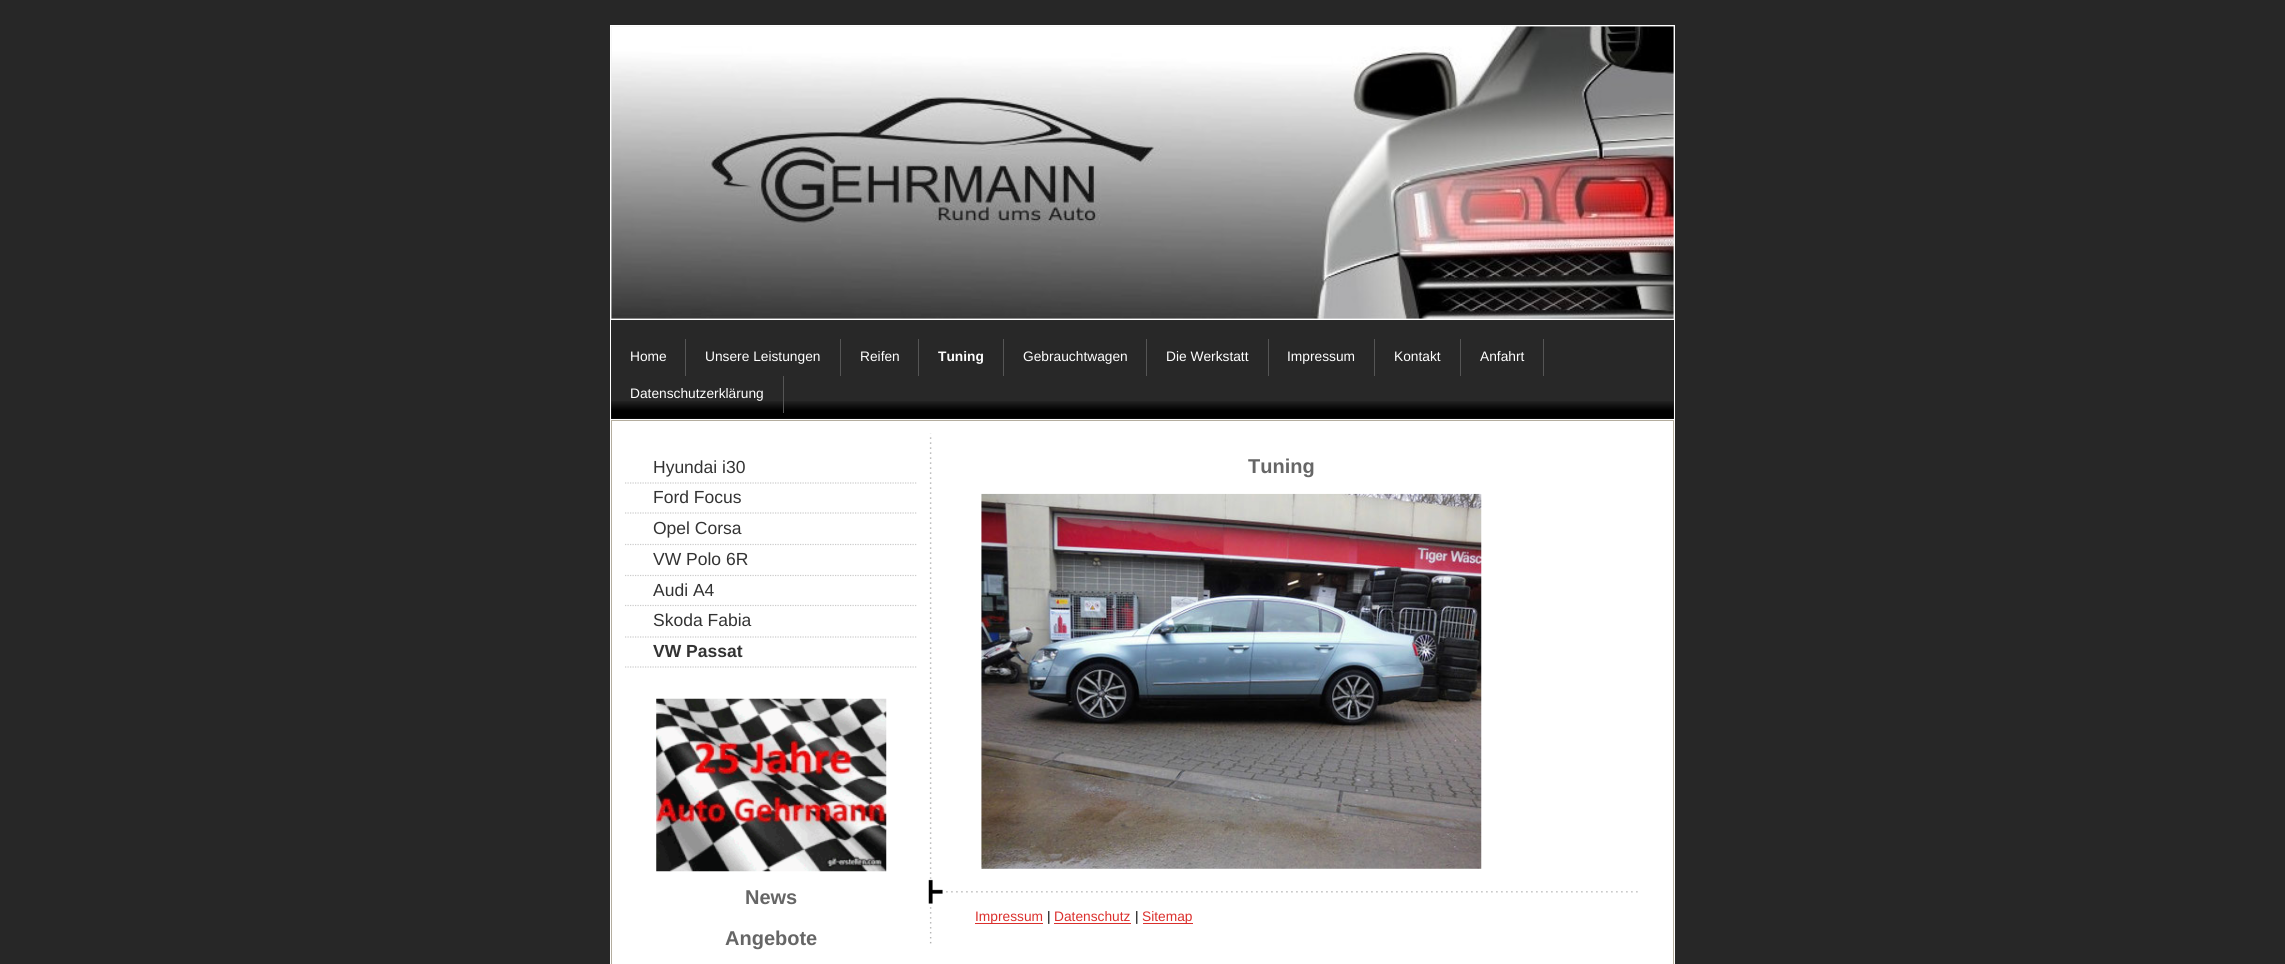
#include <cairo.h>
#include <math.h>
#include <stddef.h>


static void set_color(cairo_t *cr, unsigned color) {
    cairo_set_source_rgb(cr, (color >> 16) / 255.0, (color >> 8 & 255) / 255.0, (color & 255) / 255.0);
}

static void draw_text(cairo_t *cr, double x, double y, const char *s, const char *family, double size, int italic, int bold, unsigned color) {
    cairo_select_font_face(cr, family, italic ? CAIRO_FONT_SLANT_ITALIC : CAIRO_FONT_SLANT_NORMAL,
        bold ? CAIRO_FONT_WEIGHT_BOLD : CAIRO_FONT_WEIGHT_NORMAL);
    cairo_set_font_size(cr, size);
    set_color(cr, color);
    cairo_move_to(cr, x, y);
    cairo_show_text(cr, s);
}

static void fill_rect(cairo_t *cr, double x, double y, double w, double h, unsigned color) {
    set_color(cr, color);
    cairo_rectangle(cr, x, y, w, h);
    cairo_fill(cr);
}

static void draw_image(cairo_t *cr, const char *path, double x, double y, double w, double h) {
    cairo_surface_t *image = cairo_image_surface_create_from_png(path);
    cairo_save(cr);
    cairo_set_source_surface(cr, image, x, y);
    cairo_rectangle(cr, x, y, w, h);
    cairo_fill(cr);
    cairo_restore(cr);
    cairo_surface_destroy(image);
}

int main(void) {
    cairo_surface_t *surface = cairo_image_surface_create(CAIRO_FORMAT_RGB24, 2285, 964);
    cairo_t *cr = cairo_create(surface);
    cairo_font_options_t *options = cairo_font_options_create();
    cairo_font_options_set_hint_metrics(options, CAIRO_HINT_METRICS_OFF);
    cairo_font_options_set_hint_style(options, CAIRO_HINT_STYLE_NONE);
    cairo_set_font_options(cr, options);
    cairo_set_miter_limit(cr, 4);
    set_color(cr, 0x272727);
    cairo_paint(cr);
    fill_rect(cr, 610, 25, 1065, 939, 0xFFFFFF);
    fill_rect(cr, 611, 26, 1063, 293, 0xEEEEEE);
    draw_image(cr, "assets/img1.png", 611, 26, 1063, 293);
    fill_rect(cr, 611, 320, 1063, 99, 0x282828);
    draw_image(cr, "assets/img2.png", 611, 401, 1063, 18);
    fill_rect(cr, 685, 339, 1, 37, 0x555555);
    draw_text(cr, 630, 361, "Home", "Liberation Sans", 13.75, 0, 0, 0xFFFFFF);
    fill_rect(cr, 840, 339, 1, 37, 0x555555);
    draw_text(cr, 705, 361, "Unsere Leistungen", "Liberation Sans", 13.75, 0, 0, 0xFFFFFF);
    fill_rect(cr, 918, 339, 1, 37, 0x555555);
    draw_text(cr, 860, 361, "Reifen", "Liberation Sans", 13.75, 0, 0, 0xFFFFFF);
    fill_rect(cr, 1003, 339, 1, 37, 0x555555);
    draw_text(cr, 938, 361, "Tuning", "Liberation Sans", 13.75, 0, 1, 0xFFFFFF);
    fill_rect(cr, 1146, 339, 1, 37, 0x555555);
    draw_text(cr, 1023, 361, "Gebrauchtwagen", "Liberation Sans", 13.75, 0, 0, 0xFFFFFF);
    fill_rect(cr, 1268, 339, 1, 37, 0x555555);
    draw_text(cr, 1166, 361, "Die Werkstatt", "Liberation Sans", 13.75, 0, 0, 0xFFFFFF);
    fill_rect(cr, 1374, 339, 1, 37, 0x555555);
    draw_text(cr, 1287, 361, "Impressum", "Liberation Sans", 13.75, 0, 0, 0xFFFFFF);
    fill_rect(cr, 1460, 339, 1, 37, 0x555555);
    draw_text(cr, 1394, 361, "Kontakt", "Liberation Sans", 13.75, 0, 0, 0xFFFFFF);
    fill_rect(cr, 1543, 339, 1, 37, 0x555555);
    draw_text(cr, 1480, 361, "Anfahrt", "Liberation Sans", 13.75, 0, 0, 0xFFFFFF);
    fill_rect(cr, 783, 376, 1, 37, 0x555555);
    draw_text(cr, 630, 398, "Datenschutzerklärung", "Liberation Sans", 13.75, 0, 0, 0xFFFFFF);
    cairo_rectangle(cr, 611.5, 420.5, 1062, 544);
    set_color(cr, 0xB4AD9E);
    cairo_set_line_width(cr, 1);
    cairo_stroke(cr);
    cairo_new_path(cr);
    cairo_move_to(cr, 625, 483);
    cairo_line_to(cr, 917.5, 483);
    set_color(cr, 0xCCCCCC);
    cairo_set_line_width(cr, 1.2);
    cairo_set_dash(cr, (double[]){1.25, 1.25}, 2, 0);
    cairo_stroke(cr);
    draw_text(cr, 653, 473, "Hyundai i30", "Liberation Sans", 17.5, 0, 0, 0x333333);
    cairo_new_path(cr);
    cairo_move_to(cr, 625, 513);
    cairo_line_to(cr, 917.5, 513);
    set_color(cr, 0xCCCCCC);
    cairo_stroke(cr);
    draw_text(cr, 653, 503, "Ford Focus", "Liberation Sans", 17.5, 0, 0, 0x333333);
    cairo_new_path(cr);
    cairo_move_to(cr, 625, 544.5);
    cairo_line_to(cr, 917.5, 544.5);
    set_color(cr, 0xCCCCCC);
    cairo_stroke(cr);
    draw_text(cr, 653, 534, "Opel Corsa", "Liberation Sans", 17.5, 0, 0, 0x333333);
    cairo_new_path(cr);
    cairo_move_to(cr, 625, 575.5);
    cairo_line_to(cr, 917.5, 575.5);
    set_color(cr, 0xCCCCCC);
    cairo_stroke(cr);
    draw_text(cr, 653, 565, "VW Polo 6R", "Liberation Sans", 17.5, 0, 0, 0x333333);
    cairo_new_path(cr);
    cairo_move_to(cr, 625, 605.5);
    cairo_line_to(cr, 917.5, 605.5);
    set_color(cr, 0xCCCCCC);
    cairo_stroke(cr);
    draw_text(cr, 653, 596, "Audi A4", "Liberation Sans", 17.5, 0, 0, 0x333333);
    cairo_new_path(cr);
    cairo_move_to(cr, 625, 637);
    cairo_line_to(cr, 917.5, 637);
    set_color(cr, 0xCCCCCC);
    cairo_stroke(cr);
    draw_text(cr, 653, 626, "Skoda Fabia", "Liberation Sans", 17.5, 0, 0, 0x333333);
    cairo_new_path(cr);
    cairo_move_to(cr, 625, 667);
    cairo_line_to(cr, 917.5, 667);
    set_color(cr, 0xCCCCCC);
    cairo_stroke(cr);
    draw_text(cr, 653, 657, "VW Passat", "Liberation Sans", 17.5, 0, 1, 0x333333);
    draw_image(cr, "assets/img3.png", 656, 698, 231, 174);
    draw_text(cr, 745, 904, "News", "Liberation Sans", 20, 0, 1, 0x666666);
    draw_text(cr, 725, 945, "Angebote", "Liberation Sans", 20, 0, 1, 0x666666);
    draw_image(cr, "assets/img4.png", 929, 433, 3, 446);
    draw_text(cr, 1248, 473, "Tuning", "Liberation Sans", 20, 0, 1, 0x666666);
    draw_image(cr, "assets/img5.png", 981, 493, 501, 376);
    draw_image(cr, "assets/img6.png", 928, 879, 710, 65);
    fill_rect(cr, 975, 923, 68, 1, 0xDB2F2C);
    draw_text(cr, 975, 921, "Impressum", "Liberation Sans", 13.75, 0, 0, 0xDB2F2C);
    draw_text(cr, 1047, 921, "|", "Liberation Sans", 13.75, 0, 0, 0x000000);
    draw_text(cr, 1054, 921, "Datenschutz", "Liberation Sans", 13.75, 0, 0, 0xDB2F2C);
    fill_rect(cr, 1054, 923, 77, 1, 0xDB2F2C);
    draw_text(cr, 1135, 921, "|", "Liberation Sans", 13.75, 0, 0, 0x000000);
    fill_rect(cr, 1143, 923, 50, 1, 0xDB2F2C);
    draw_text(cr, 1142, 921, "Sitemap", "Liberation Sans", 13.75, 0, 0, 0xDB2F2C);
    cairo_surface_write_to_png(surface, "output.png");
    cairo_font_options_destroy(options);
    cairo_destroy(cr);
    cairo_surface_destroy(surface);
    return 0;
}
